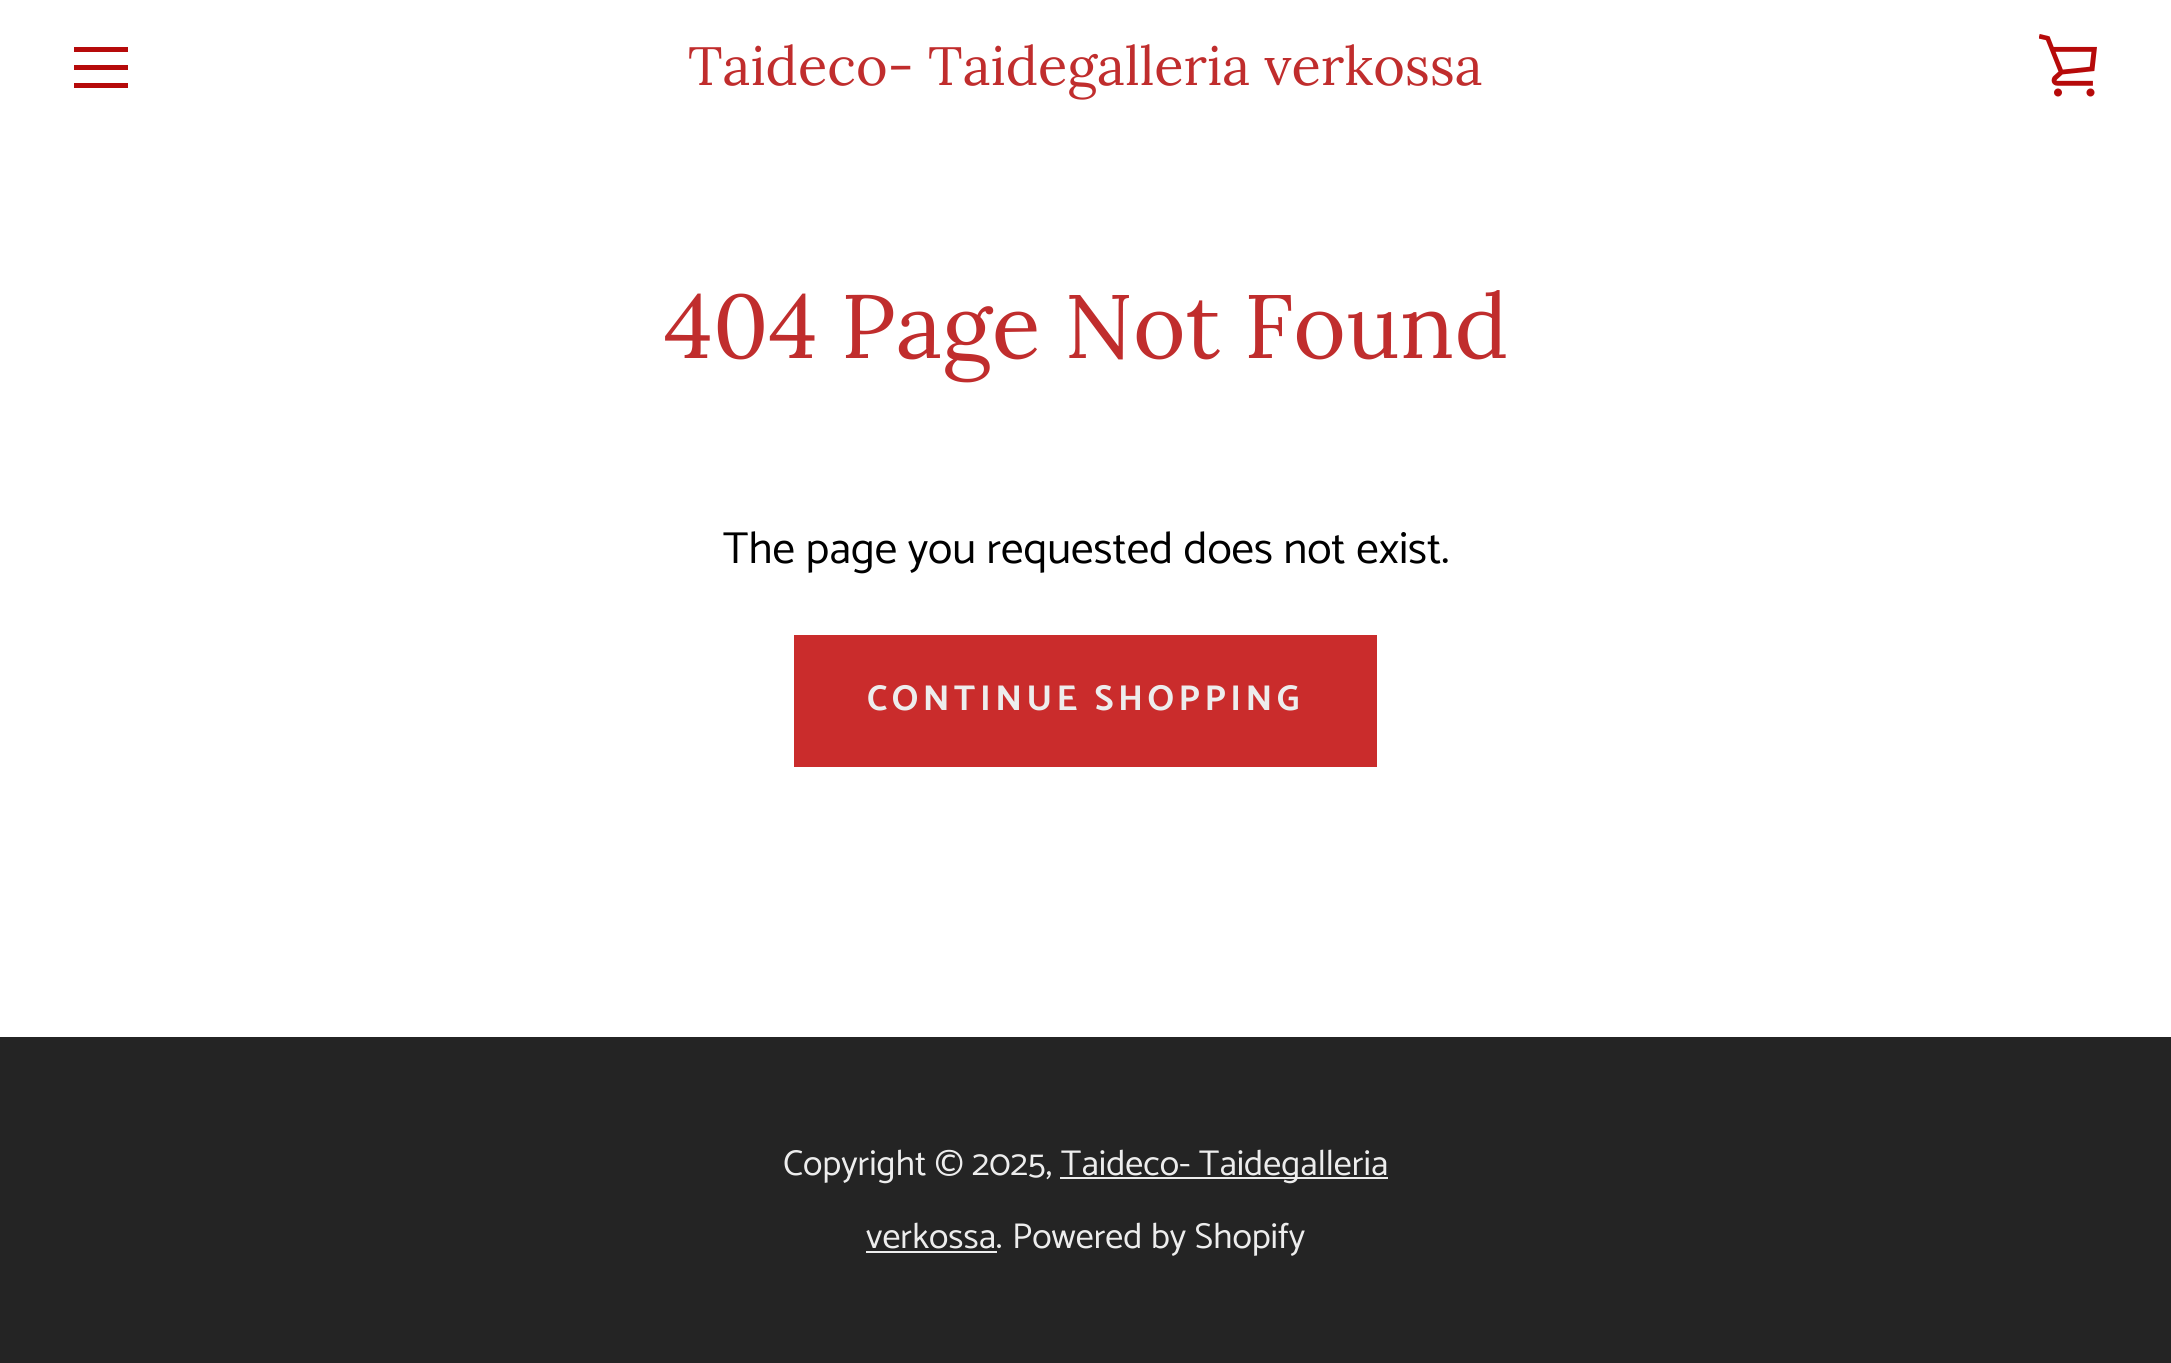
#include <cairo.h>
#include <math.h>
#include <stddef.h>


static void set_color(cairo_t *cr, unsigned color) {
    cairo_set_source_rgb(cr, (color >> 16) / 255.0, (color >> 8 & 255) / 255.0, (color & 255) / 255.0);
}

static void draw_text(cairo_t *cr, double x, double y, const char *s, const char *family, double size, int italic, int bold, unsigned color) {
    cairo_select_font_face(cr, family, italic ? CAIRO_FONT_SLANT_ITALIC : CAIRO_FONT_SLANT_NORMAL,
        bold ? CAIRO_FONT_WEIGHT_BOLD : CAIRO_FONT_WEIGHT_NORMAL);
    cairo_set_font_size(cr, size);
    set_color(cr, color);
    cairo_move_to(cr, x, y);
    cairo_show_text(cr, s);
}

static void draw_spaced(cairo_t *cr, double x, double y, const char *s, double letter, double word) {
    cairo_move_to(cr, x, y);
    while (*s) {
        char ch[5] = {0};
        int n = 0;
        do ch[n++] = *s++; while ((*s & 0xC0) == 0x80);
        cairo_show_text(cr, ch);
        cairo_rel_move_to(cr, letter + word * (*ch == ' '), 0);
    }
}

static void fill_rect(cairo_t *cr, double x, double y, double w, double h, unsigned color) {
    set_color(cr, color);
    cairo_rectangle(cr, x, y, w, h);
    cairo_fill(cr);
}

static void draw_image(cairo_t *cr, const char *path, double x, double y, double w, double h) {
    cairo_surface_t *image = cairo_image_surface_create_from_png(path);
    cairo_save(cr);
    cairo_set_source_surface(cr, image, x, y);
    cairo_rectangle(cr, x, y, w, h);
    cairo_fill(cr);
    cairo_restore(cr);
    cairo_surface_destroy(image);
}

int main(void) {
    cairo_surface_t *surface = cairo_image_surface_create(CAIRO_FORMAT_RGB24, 2171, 1363);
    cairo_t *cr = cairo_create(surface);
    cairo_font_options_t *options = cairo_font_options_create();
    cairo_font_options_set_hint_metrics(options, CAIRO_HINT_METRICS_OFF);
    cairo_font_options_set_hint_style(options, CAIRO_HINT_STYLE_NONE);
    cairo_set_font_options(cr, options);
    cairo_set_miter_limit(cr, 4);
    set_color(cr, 0xFFFFFF);
    cairo_paint(cr);
    fill_rect(cr, 74, 47, 54, 5, 0xB60A0A);
    fill_rect(cr, 74, 65, 54, 5, 0xB60A0A);
    fill_rect(cr, 74, 83, 54, 5, 0xB60A0A);
    draw_text(cr, 688, 85, "Taideco- Taidegalleria verkossa", "Lora", 54, 0, 0, 0xC02D2D);
    draw_image(cr, "assets/img1.png", 2039, 34, 58, 63);
    draw_text(cr, 664, 358, "404 Page Not Found", "Lora", 90, 0, 0, 0xC02D2D);
    draw_text(cr, 723, 563, "The page you requested does not exist.", "Catamaran", 45, 0, 0, 0x000000);
    fill_rect(cr, 794, 635, 583, 132, 0xCA2C2C);
    cairo_select_font_face(cr, "Catamaran", CAIRO_FONT_SLANT_NORMAL, CAIRO_FONT_WEIGHT_BOLD);
    cairo_set_font_size(cr, 36);
    set_color(cr, 0xEDEDED);
    draw_spaced(cr, 867, 710, "CONTINUE SHOPPING", 4.5, 0);
    fill_rect(cr, 0, 1037, 2171, 326, 0x242424);
    draw_text(cr, 783, 1175, "Copyright © 2025,", "Catamaran", 36, 0, 0, 0xEDEDED);
    fill_rect(cr, 1060, 1177, 328, 2, 0xEDEDED);
    draw_text(cr, 1061, 1175, "Taideco- Taidegalleria", "Catamaran", 36, 0, 0, 0xEDEDED);
    draw_text(cr, 866, 1248, "verkossa.", "Catamaran", 36, 0, 0, 0xEDEDED);
    fill_rect(cr, 866, 1251, 131, 2, 0xEDEDED);
    draw_text(cr, 1012, 1248, "Powered by Shopify", "Catamaran", 36, 0, 0, 0xEDEDED);
    cairo_surface_write_to_png(surface, "output.png");
    cairo_font_options_destroy(options);
    cairo_destroy(cr);
    cairo_surface_destroy(surface);
    return 0;
}
